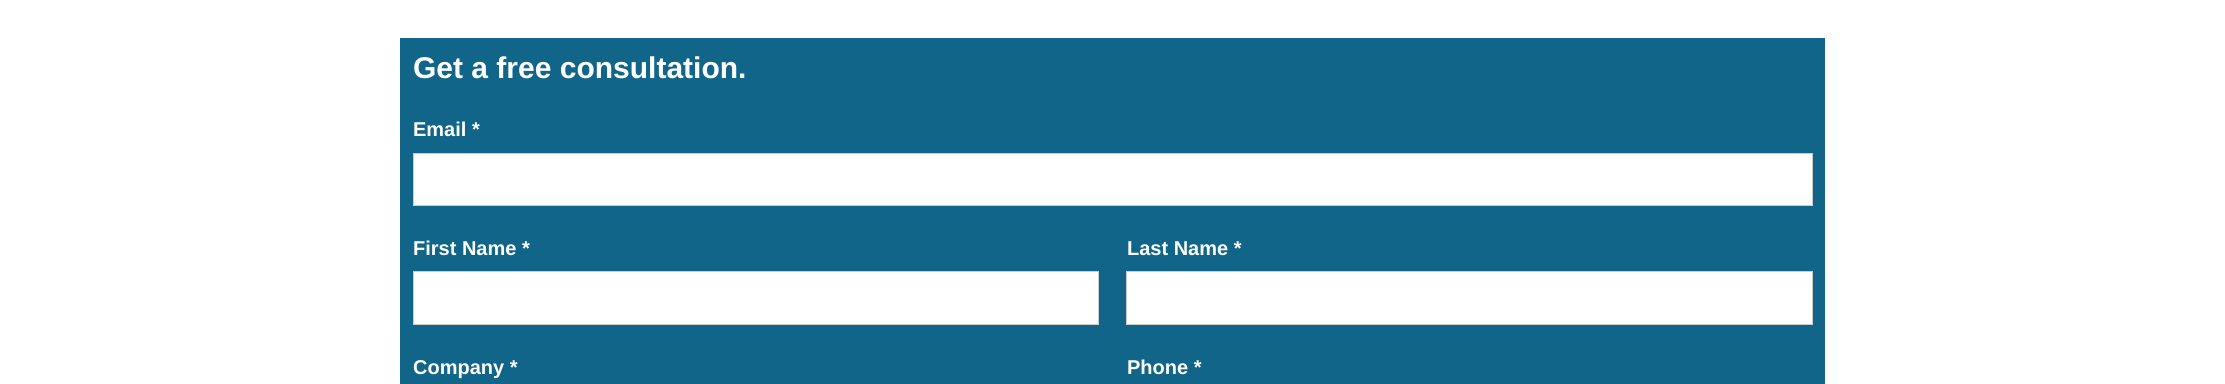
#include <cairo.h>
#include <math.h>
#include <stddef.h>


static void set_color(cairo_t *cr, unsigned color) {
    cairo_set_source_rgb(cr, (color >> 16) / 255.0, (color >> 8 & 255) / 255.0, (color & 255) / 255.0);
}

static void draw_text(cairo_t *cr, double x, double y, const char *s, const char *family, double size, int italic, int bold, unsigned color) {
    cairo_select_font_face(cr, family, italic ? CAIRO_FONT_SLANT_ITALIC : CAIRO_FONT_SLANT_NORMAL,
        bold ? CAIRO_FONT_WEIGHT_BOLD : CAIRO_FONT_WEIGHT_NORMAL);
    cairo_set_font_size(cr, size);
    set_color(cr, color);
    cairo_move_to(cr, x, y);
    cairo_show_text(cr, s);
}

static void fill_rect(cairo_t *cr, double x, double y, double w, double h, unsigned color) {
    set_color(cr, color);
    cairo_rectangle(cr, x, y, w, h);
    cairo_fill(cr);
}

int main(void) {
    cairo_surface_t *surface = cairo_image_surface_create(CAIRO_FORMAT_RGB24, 2225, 384);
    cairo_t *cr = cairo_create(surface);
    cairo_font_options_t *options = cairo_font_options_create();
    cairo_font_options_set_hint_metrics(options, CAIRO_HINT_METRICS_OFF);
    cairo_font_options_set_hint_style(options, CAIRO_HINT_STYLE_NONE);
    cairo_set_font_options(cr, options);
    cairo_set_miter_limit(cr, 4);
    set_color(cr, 0xFFFFFF);
    cairo_paint(cr);
    fill_rect(cr, 400, 38, 1425, 346, 0x106588);
    draw_text(cr, 413, 78, "Get a free consultation.", "Liberation Sans", 30, 0, 1, 0xFFFFFF);
    draw_text(cr, 413, 136, "Email *", "Liberation Sans", 20, 0, 1, 0xFFFFFF);
    cairo_rectangle(cr, 413.5, 153.5, 1399, 52);
    cairo_fill_preserve(cr);
    set_color(cr, 0xCCCCCC);
    cairo_set_line_width(cr, 1);
    cairo_stroke(cr);
    draw_text(cr, 413, 255, "First Name *", "Liberation Sans", 20, 0, 1, 0xFFFFFF);
    cairo_rectangle(cr, 413.5, 271.5, 685, 53);
    cairo_fill_preserve(cr);
    set_color(cr, 0xCCCCCC);
    cairo_stroke(cr);
    draw_text(cr, 1127, 255, "Last Name *", "Liberation Sans", 20, 0, 1, 0xFFFFFF);
    cairo_rectangle(cr, 1126.5, 271.5, 686, 53);
    cairo_fill_preserve(cr);
    set_color(cr, 0xCCCCCC);
    cairo_stroke(cr);
    draw_text(cr, 413, 374, "Company *", "Liberation Sans", 20, 0, 1, 0xFFFFFF);
    draw_text(cr, 1127, 374, "Phone *", "Liberation Sans", 20, 0, 1, 0xFFFFFF);
    cairo_surface_write_to_png(surface, "output.png");
    cairo_font_options_destroy(options);
    cairo_destroy(cr);
    cairo_surface_destroy(surface);
    return 0;
}
